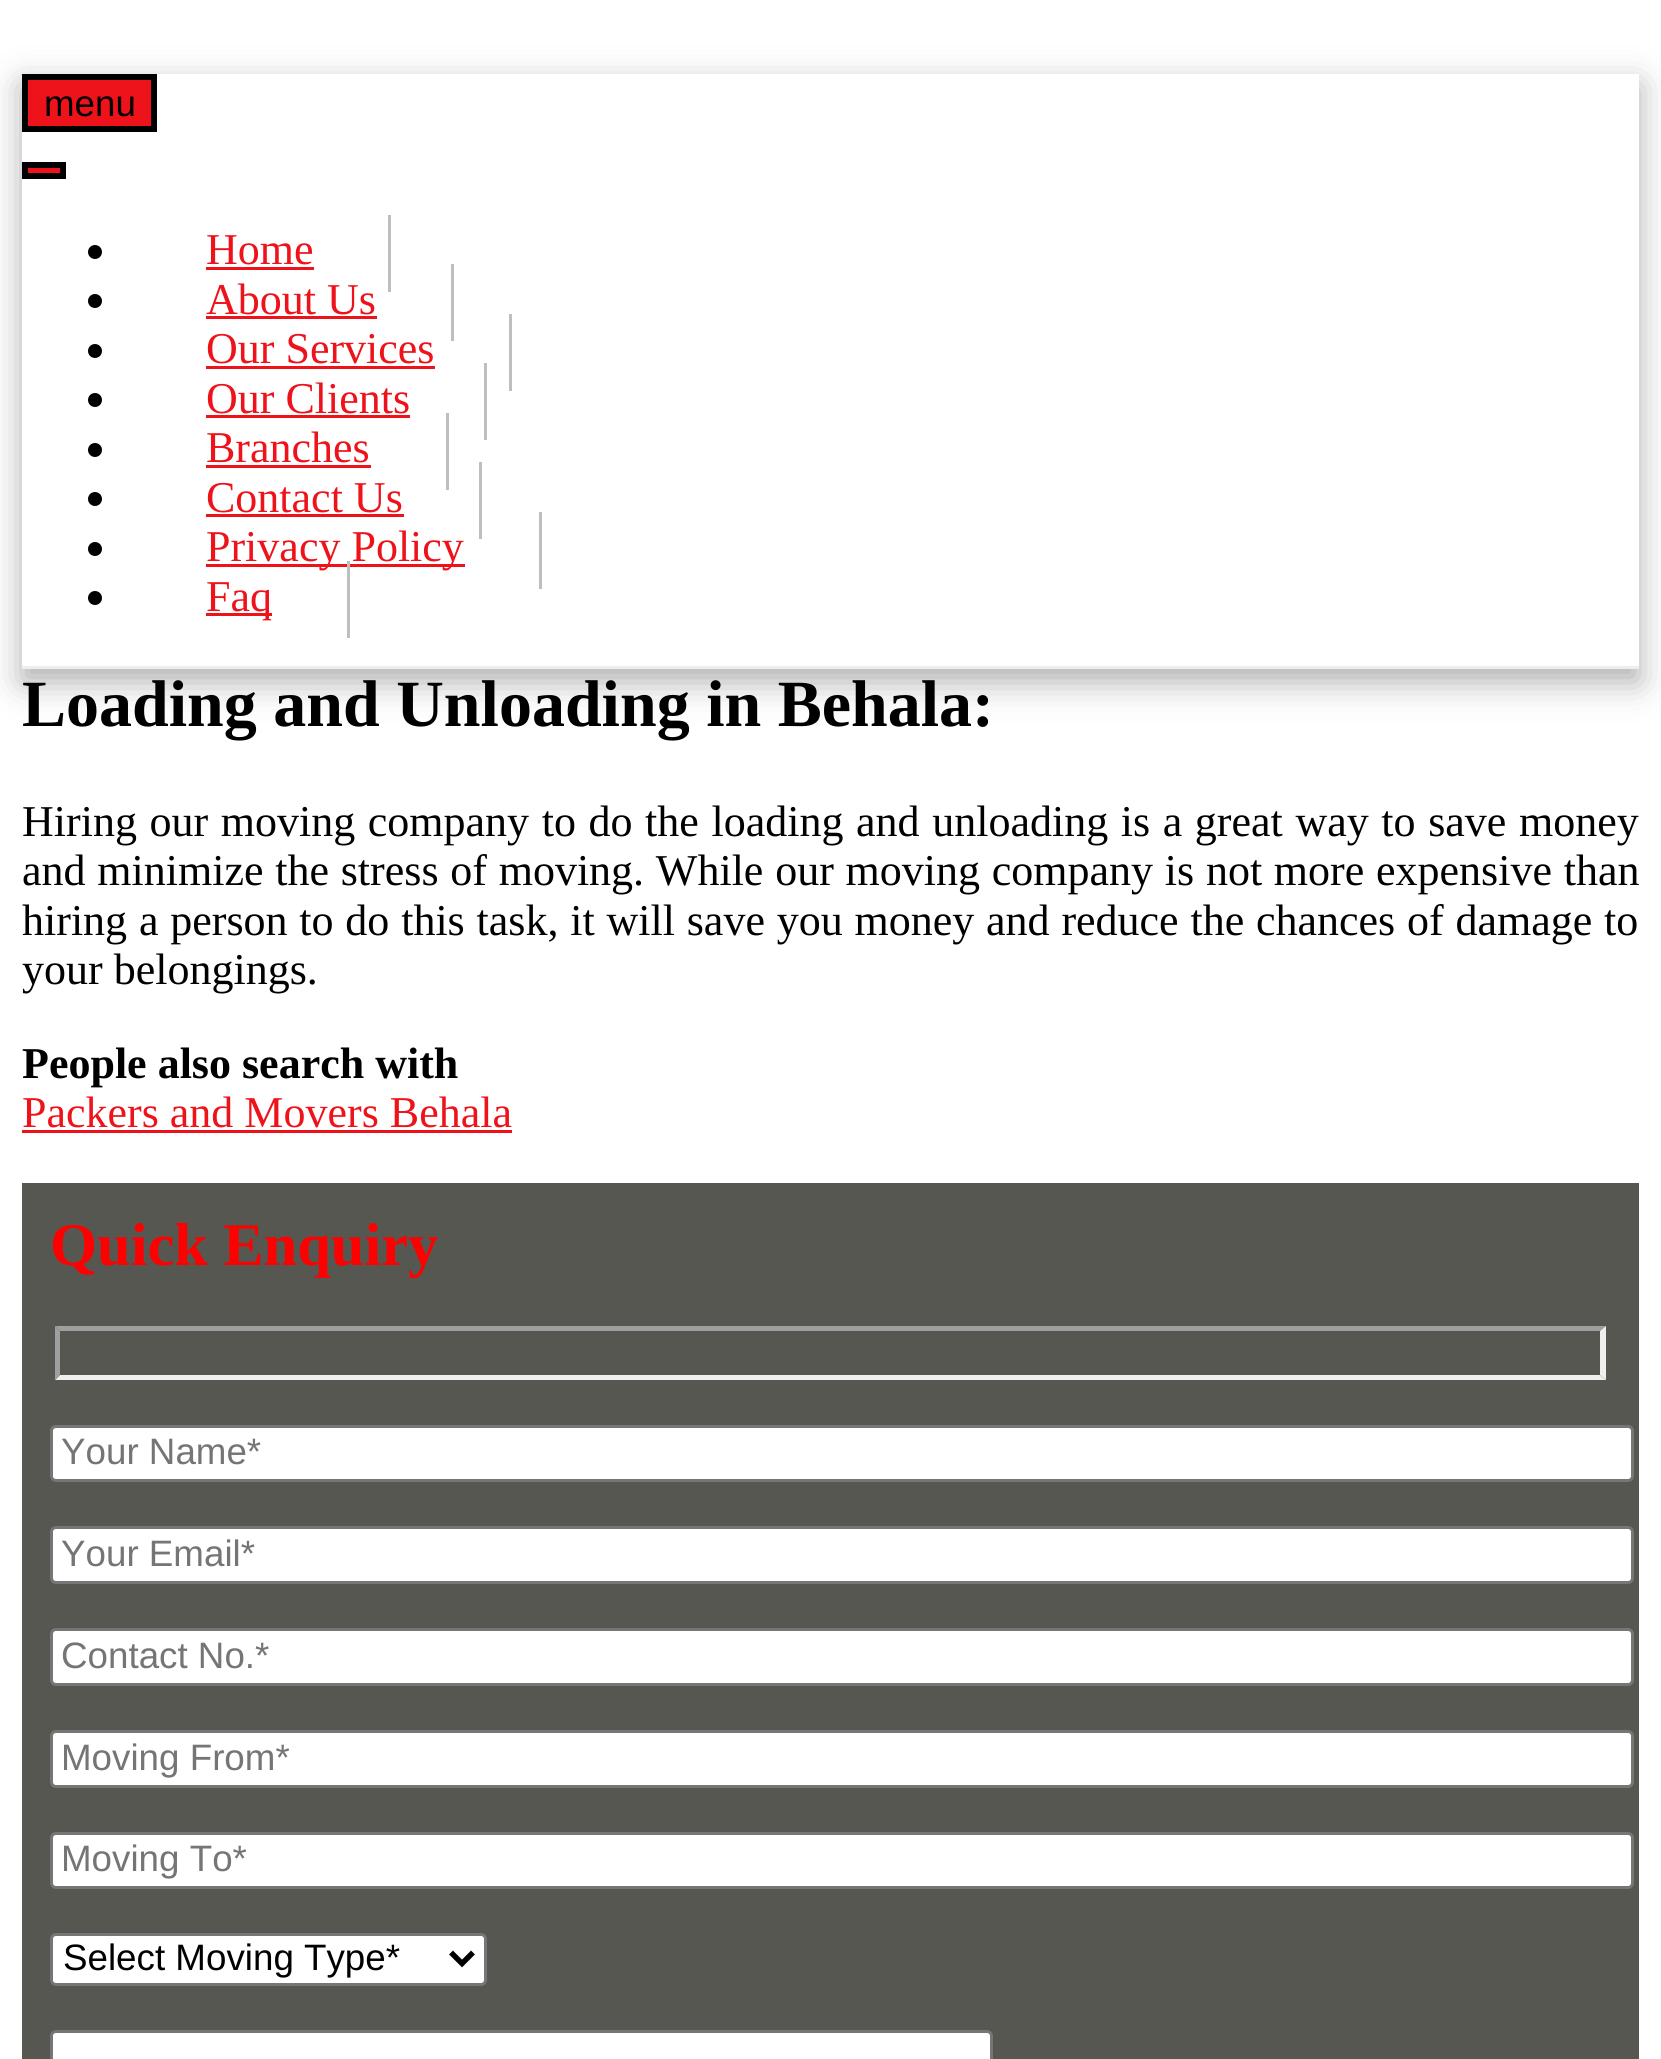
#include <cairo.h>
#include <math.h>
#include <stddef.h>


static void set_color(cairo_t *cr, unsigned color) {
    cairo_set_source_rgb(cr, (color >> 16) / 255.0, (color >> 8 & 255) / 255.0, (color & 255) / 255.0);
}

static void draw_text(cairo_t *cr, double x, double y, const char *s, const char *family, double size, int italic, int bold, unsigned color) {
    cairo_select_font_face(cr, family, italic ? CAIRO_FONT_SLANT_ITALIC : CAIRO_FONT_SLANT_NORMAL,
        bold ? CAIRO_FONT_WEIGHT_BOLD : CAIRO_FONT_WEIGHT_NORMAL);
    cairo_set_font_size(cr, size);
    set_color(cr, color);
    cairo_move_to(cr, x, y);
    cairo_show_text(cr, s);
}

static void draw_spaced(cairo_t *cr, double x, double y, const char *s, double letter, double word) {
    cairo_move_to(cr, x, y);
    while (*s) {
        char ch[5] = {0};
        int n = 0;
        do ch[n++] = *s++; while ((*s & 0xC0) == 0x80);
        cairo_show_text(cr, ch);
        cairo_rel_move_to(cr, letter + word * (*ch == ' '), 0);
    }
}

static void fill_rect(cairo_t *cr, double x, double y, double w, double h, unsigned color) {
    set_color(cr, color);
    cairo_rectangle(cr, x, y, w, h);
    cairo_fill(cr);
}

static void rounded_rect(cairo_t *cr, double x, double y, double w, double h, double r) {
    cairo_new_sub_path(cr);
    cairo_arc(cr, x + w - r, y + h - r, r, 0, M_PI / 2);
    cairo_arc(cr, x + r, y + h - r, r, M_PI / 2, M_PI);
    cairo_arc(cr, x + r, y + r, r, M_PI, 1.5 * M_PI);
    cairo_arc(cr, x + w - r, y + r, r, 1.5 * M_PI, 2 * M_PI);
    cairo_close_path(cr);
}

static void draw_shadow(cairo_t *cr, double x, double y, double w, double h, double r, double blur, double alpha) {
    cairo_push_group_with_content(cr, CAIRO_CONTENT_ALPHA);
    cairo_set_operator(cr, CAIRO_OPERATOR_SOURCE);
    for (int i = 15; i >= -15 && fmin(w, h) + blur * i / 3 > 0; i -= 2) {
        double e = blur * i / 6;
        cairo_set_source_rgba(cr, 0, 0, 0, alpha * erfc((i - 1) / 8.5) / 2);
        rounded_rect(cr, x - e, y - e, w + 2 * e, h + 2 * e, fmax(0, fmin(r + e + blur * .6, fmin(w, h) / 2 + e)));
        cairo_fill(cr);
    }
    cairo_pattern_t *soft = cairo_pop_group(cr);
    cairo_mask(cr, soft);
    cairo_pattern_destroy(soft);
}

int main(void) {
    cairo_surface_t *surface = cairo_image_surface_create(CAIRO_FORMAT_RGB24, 1661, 2059);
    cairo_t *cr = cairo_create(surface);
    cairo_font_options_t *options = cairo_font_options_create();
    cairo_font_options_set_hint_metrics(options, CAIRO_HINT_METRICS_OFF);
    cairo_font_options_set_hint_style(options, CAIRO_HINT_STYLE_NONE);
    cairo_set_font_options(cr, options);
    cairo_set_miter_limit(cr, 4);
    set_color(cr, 0xFFFFFF);
    cairo_paint(cr);
    cairo_save(cr);
    cairo_set_fill_rule(cr, CAIRO_FILL_RULE_EVEN_ODD);
    cairo_new_path(cr);
    cairo_move_to(cr, 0, 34);
    cairo_line_to(cr, 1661, 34);
    cairo_line_to(cr, 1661, 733);
    cairo_line_to(cr, 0, 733);
    cairo_close_path(cr);
    cairo_move_to(cr, 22, 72);
    cairo_line_to(cr, 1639, 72);
    cairo_line_to(cr, 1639, 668);
    cairo_line_to(cr, 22, 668);
    cairo_close_path(cr);
    cairo_clip(cr);
    set_color(cr, 0xAFAFAF);
    draw_shadow(cr, 22, 85, 1617, 597, 0, 16.5, 1);
    cairo_restore(cr);
    fill_rect(cr, 22, 72, 1617, 2, 0xEDEDED);
    fill_rect(cr, 22, 666, 1617, 3, 0xEDEDED);
    set_color(cr, 0xEE121A);
    cairo_rectangle(cr, 25, 77, 129, 52);
    cairo_fill_preserve(cr);
    set_color(cr, 0x000000);
    cairo_set_line_width(cr, 6);
    cairo_stroke(cr);
    draw_text(cr, 44, 116, "menu", "Liberation Sans", 36.75, 0, 0, 0x000000);
    set_color(cr, 0xEE121A);
    cairo_rectangle(cr, 25, 165, 38, 11);
    cairo_fill_preserve(cr);
    set_color(cr, 0x000000);
    cairo_stroke(cr);
    cairo_arc(cr, 95, 252, 7, 0, 2 * M_PI);
    cairo_fill(cr);
    draw_text(cr, 206, 264, "Home", "Liberation Serif", 44, 0, 0, 0xEE121A);
    fill_rect(cr, 388, 215, 3, 77, 0xBDBEC0);
    fill_rect(cr, 206, 267, 108, 3, 0xEE121A);
    set_color(cr, 0x000000);
    cairo_new_path(cr);
    cairo_arc(cr, 95, 301, 7, 0, 2 * M_PI);
    cairo_fill(cr);
    draw_text(cr, 206, 314, "About Us", "Liberation Serif", 44, 0, 0, 0xEE121A);
    fill_rect(cr, 451, 264, 3, 77, 0xBDBEC0);
    fill_rect(cr, 206, 316, 171, 3, 0xEE121A);
    set_color(cr, 0x000000);
    cairo_new_path(cr);
    cairo_arc(cr, 95, 351, 7, 0, 2 * M_PI);
    cairo_fill(cr);
    draw_text(cr, 206, 363, "Our Services", "Liberation Serif", 44, 0, 0, 0xEE121A);
    fill_rect(cr, 509, 314, 3, 77, 0xBDBEC0);
    fill_rect(cr, 206, 366, 229, 3, 0xEE121A);
    set_color(cr, 0x000000);
    cairo_new_path(cr);
    cairo_arc(cr, 95, 400, 7, 0, 2 * M_PI);
    cairo_fill(cr);
    draw_text(cr, 206, 413, "Our Clients", "Liberation Serif", 44, 0, 0, 0xEE121A);
    fill_rect(cr, 484, 363, 3, 77, 0xBDBEC0);
    fill_rect(cr, 206, 415, 204, 3, 0xEE121A);
    set_color(cr, 0x000000);
    cairo_new_path(cr);
    cairo_arc(cr, 95, 450, 7, 0, 2 * M_PI);
    cairo_fill(cr);
    draw_text(cr, 206, 462, "Branches", "Liberation Serif", 44, 0, 0, 0xEE121A);
    fill_rect(cr, 446, 413, 3, 77, 0xBDBEC0);
    fill_rect(cr, 206, 465, 165, 3, 0xEE121A);
    set_color(cr, 0x000000);
    cairo_new_path(cr);
    cairo_arc(cr, 95, 499, 7, 0, 2 * M_PI);
    cairo_fill(cr);
    draw_text(cr, 206, 512, "Contact Us", "Liberation Serif", 44, 0, 0, 0xEE121A);
    fill_rect(cr, 479, 462, 3, 77, 0xBDBEC0);
    fill_rect(cr, 206, 514, 198, 3, 0xEE121A);
    set_color(cr, 0x000000);
    cairo_new_path(cr);
    cairo_arc(cr, 95, 549, 7, 0, 2 * M_PI);
    cairo_fill(cr);
    fill_rect(cr, 206, 564, 259, 3, 0xEE121A);
    draw_text(cr, 206, 561, "Privacy Policy", "Liberation Serif", 44, 0, 0, 0xEE121A);
    fill_rect(cr, 539, 512, 3, 77, 0xBDBEC0);
    set_color(cr, 0x000000);
    cairo_new_path(cr);
    cairo_arc(cr, 95, 598, 7, 0, 2 * M_PI);
    cairo_fill(cr);
    fill_rect(cr, 206, 613, 66, 3, 0xEE121A);
    draw_text(cr, 206, 611, "Faq", "Liberation Serif", 44, 0, 0, 0xEE121A);
    fill_rect(cr, 347, 561, 3, 77, 0xBDBEC0);
    draw_text(cr, 22, 726, "Loading and Unloading in Behala:", "Liberation Serif", 66, 0, 1, 0x000000);
    cairo_select_font_face(cr, "Liberation Serif", CAIRO_FONT_SLANT_NORMAL, CAIRO_FONT_WEIGHT_NORMAL);
    cairo_set_font_size(cr, 44);
    draw_spaced(cr, 22, 836, "Hiring our moving company to do the loading and unloading is a great way to save money", 0, 1.6);
    draw_spaced(cr, 22, 885, "and minimize the stress of moving. While our moving company is not more expensive than", 0, 0.75);
    draw_spaced(cr, 22, 935, "hiring a person to do this task, it will save you money and reduce the chances of damage to", 0, 0.8);
    draw_text(cr, 22, 984, "your belongings.", "Liberation Serif", 44, 0, 0, 0x000000);
    draw_text(cr, 22, 1078, "People also search with", "Liberation Serif", 44, 0, 1, 0x000000);
    draw_text(cr, 22, 1127, "Packers and Movers Behala", "Liberation Serif", 44, 0, 0, 0xEE121A);
    fill_rect(cr, 22, 1130, 490, 3, 0xEE121A);
    fill_rect(cr, 22, 1183, 1617, 876, 0x565751);
    draw_text(cr, 50, 1265, "Quick Enquiry", "Liberation Serif", 60.5, 0, 1, 0xFF0000);
    set_color(cr, 0x9F9F9F);
    cairo_new_path(cr);
    cairo_move_to(cr, 55, 1326);
    cairo_line_to(cr, 1606, 1326);
    cairo_line_to(cr, 1600, 1331);
    cairo_line_to(cr, 60, 1331);
    cairo_close_path(cr);
    cairo_fill(cr);
    set_color(cr, 0xEFEFEF);
    cairo_new_path(cr);
    cairo_move_to(cr, 1606, 1326);
    cairo_line_to(cr, 1606, 1380);
    cairo_line_to(cr, 1600, 1375);
    cairo_line_to(cr, 1600, 1331);
    cairo_close_path(cr);
    cairo_fill(cr);
    cairo_new_path(cr);
    cairo_move_to(cr, 1606, 1380);
    cairo_line_to(cr, 55, 1380);
    cairo_line_to(cr, 60, 1375);
    cairo_line_to(cr, 1600, 1375);
    cairo_close_path(cr);
    cairo_fill(cr);
    set_color(cr, 0x9F9F9F);
    cairo_new_path(cr);
    cairo_move_to(cr, 55, 1380);
    cairo_line_to(cr, 55, 1326);
    cairo_line_to(cr, 60, 1331);
    cairo_line_to(cr, 60, 1375);
    cairo_close_path(cr);
    cairo_fill(cr);
    set_color(cr, 0xFFFFFF);
    rounded_rect(cr, 51.5, 1426.5, 1581, 54, 4.5);
    cairo_fill_preserve(cr);
    set_color(cr, 0x767676);
    cairo_set_line_width(cr, 3);
    cairo_stroke(cr);
    draw_text(cr, 61, 1464, "Your Name*", "Liberation Sans", 36.75, 0, 0, 0x757575);
    set_color(cr, 0xFFFFFF);
    rounded_rect(cr, 51.5, 1527.5, 1581, 55, 4.5);
    cairo_fill_preserve(cr);
    set_color(cr, 0x767676);
    cairo_stroke(cr);
    draw_text(cr, 61, 1566, "Your Email*", "Liberation Sans", 36.75, 0, 0, 0x757575);
    set_color(cr, 0xFFFFFF);
    rounded_rect(cr, 51.5, 1629.5, 1581, 55, 4.5);
    cairo_fill_preserve(cr);
    set_color(cr, 0x767676);
    cairo_stroke(cr);
    draw_text(cr, 61, 1668, "Contact No.*", "Liberation Sans", 36.75, 0, 0, 0x757575);
    set_color(cr, 0xFFFFFF);
    rounded_rect(cr, 51.5, 1731.5, 1581, 55, 4.5);
    cairo_fill_preserve(cr);
    set_color(cr, 0x767676);
    cairo_stroke(cr);
    draw_text(cr, 61, 1770, "Moving From*", "Liberation Sans", 36.75, 0, 0, 0x757575);
    set_color(cr, 0xFFFFFF);
    rounded_rect(cr, 51.5, 1833.5, 1581, 54, 4.5);
    cairo_fill_preserve(cr);
    set_color(cr, 0x767676);
    cairo_stroke(cr);
    draw_text(cr, 61, 1871, "Moving To*", "Liberation Sans", 36.75, 0, 0, 0x757575);
    set_color(cr, 0xFFFFFF);
    rounded_rect(cr, 51.5, 1934.5, 434, 50, 4.5);
    cairo_fill_preserve(cr);
    set_color(cr, 0x767676);
    cairo_stroke(cr);
    cairo_new_path(cr);
    cairo_move_to(cr, 451, 1952.5);
    cairo_line_to(cr, 462, 1963.5);
    cairo_line_to(cr, 473, 1952.5);
    set_color(cr, 0x000000);
    cairo_set_line_width(cr, 5.5);
    cairo_stroke(cr);
    draw_text(cr, 63, 1970, "Select Moving Type*", "Liberation Sans", 36.75, 0, 0, 0x000000);
    set_color(cr, 0xFFFFFF);
    rounded_rect(cr, 51.5, 2031.5, 940, 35, 4.5);
    cairo_fill_preserve(cr);
    set_color(cr, 0x767676);
    cairo_set_line_width(cr, 3);
    cairo_stroke(cr);
    cairo_surface_write_to_png(surface, "output.png");
    cairo_font_options_destroy(options);
    cairo_destroy(cr);
    cairo_surface_destroy(surface);
    return 0;
}
